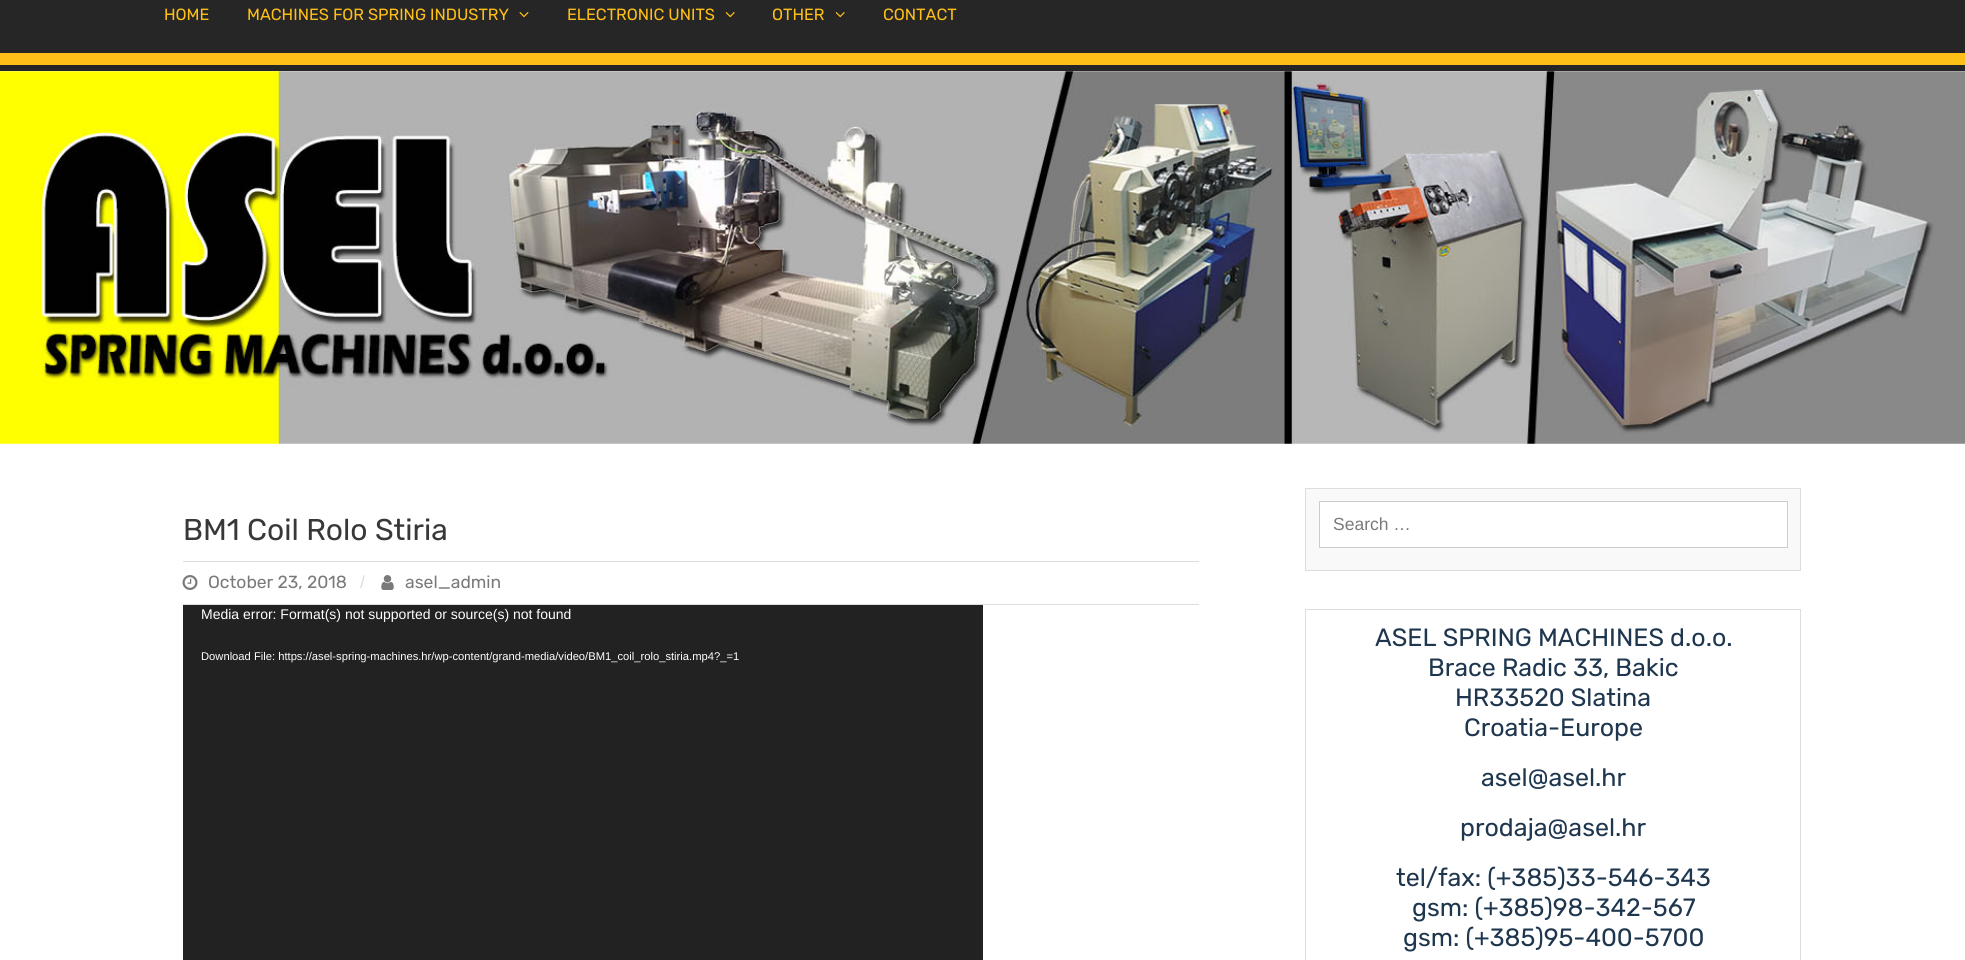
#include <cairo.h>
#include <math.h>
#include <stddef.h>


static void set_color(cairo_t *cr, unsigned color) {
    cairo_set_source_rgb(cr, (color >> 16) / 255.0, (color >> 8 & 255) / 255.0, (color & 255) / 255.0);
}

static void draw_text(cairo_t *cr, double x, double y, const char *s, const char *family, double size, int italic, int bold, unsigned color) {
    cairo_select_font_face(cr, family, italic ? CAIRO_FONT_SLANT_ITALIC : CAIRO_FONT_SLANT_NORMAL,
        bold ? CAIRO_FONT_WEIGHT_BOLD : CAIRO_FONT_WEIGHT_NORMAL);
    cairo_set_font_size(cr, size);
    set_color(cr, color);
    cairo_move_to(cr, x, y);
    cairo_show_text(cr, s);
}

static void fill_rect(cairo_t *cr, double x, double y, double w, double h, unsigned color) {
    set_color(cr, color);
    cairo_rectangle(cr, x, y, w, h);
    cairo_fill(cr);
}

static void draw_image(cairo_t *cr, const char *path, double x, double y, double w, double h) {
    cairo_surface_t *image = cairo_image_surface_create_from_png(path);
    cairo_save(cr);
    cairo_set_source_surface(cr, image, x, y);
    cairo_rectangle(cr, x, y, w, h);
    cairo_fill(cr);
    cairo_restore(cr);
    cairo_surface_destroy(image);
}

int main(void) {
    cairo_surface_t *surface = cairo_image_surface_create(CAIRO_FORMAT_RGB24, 1965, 960);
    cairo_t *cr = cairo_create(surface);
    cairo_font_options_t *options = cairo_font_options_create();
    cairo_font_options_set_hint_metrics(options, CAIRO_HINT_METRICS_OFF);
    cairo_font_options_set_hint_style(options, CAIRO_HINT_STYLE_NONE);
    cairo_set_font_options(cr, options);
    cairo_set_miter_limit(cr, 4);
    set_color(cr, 0xFFFFFF);
    cairo_paint(cr);
    fill_rect(cr, 0, 0, 1965, 71, 0x262626);
    fill_rect(cr, 0, 53, 1965, 12, 0xFFBF19);
    draw_text(cr, 164, 20, "HOME", "Rubik", 16.25, 0, 0, 0xFFBF19);
    draw_text(cr, 247, 20, "MACHINES FOR SPRING INDUSTRY", "Rubik", 16.25, 0, 0, 0xFFBF19);
    draw_image(cr, "assets/img1.png", 519, 12, 10, 6);
    draw_text(cr, 567, 20, "ELECTRONIC UNITS", "Rubik", 16.25, 0, 0, 0xFFBF19);
    draw_image(cr, "assets/img2.png", 725, 12, 10, 6);
    draw_text(cr, 772, 20, "OTHER", "Rubik", 16.25, 0, 0, 0xFFBF19);
    draw_image(cr, "assets/img2.png", 835, 12, 10, 6);
    draw_text(cr, 883, 20, "CONTACT", "Rubik", 16.25, 0, 0, 0xFFBF19);
    draw_image(cr, "assets/img3.png", 0, 71, 1965, 373);
    draw_text(cr, 183, 540, "BM1 Coil Rolo Stiria", "Rubik", 30, 0, 0, 0x383838);
    fill_rect(cr, 183, 561, 1016, 1, 0xDDDDDD);
    fill_rect(cr, 183, 604, 1016, 1, 0xDDDDDD);
    draw_image(cr, "assets/img4.png", 182, 575, 16, 15);
    draw_text(cr, 208, 588, "October 23, 2018", "Rubik", 17.5, 0, 0, 0x7A7A7A);
    draw_text(cr, 360, 588, "/", "Liberation Sans", 17.5, 0, 0, 0xDDDDDD);
    draw_image(cr, "assets/img5.png", 381, 575, 13, 15);
    draw_text(cr, 405, 588, "asel_admin", "Rubik", 17.5, 0, 0, 0x7A7A7A);
    fill_rect(cr, 183, 605, 800, 355, 0x222222);
    draw_text(cr, 201, 619, "Media error: Format(s) not supported or source(s) not found", "Liberation Sans", 14, 0, 0, 0xFFFFFF);
    draw_text(cr, 201, 660, "Download File: https://asel-spring-machines.hr/wp-content/grand-media/video/BM1_coil_rolo_stiria.mp4?_=1", "Liberation Sans", 11.2, 0, 0, 0xFFFFFF);
    set_color(cr, 0xF9F9F9);
    cairo_rectangle(cr, 1305.5, 488.5, 495, 82);
    cairo_fill_preserve(cr);
    set_color(cr, 0xDDDDDD);
    cairo_set_line_width(cr, 1);
    cairo_stroke(cr);
    set_color(cr, 0xFFFFFF);
    cairo_rectangle(cr, 1319.5, 501.5, 468, 46);
    cairo_fill_preserve(cr);
    set_color(cr, 0xCCCCCC);
    cairo_stroke(cr);
    draw_text(cr, 1333, 530, "Search …", "Liberation Sans", 17.5, 0, 0, 0x7A7A7A);
    cairo_rectangle(cr, 1305.5, 609.5, 495, 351);
    set_color(cr, 0xDDDDDD);
    cairo_stroke(cr);
    draw_text(cr, 1375, 646, "ASEL SPRING MACHINES d.o.o.", "Rubik", 25, 0, 0, 0x1E364E);
    draw_text(cr, 1428, 676, "Brace Radic 33, Bakic", "Rubik", 25, 0, 0, 0x1E364E);
    draw_text(cr, 1455, 706, "HR33520 Slatina", "Rubik", 25, 0, 0, 0x1E364E);
    draw_text(cr, 1464, 736, "Croatia-Europe", "Rubik", 25, 0, 0, 0x1E364E);
    draw_text(cr, 1481, 786, "asel@asel.hr", "Rubik", 25, 0, 0, 0x1E364E);
    draw_text(cr, 1460, 836, "prodaja@asel.hr", "Rubik", 25, 0, 0, 0x1E364E);
    draw_text(cr, 1396, 886, "tel/fax: (+385)33-546-343", "Rubik", 25, 0, 0, 0x1E364E);
    draw_text(cr, 1412, 916, "gsm: (+385)98-342-567", "Rubik", 25, 0, 0, 0x1E364E);
    draw_text(cr, 1403, 946, "gsm: (+385)95-400-5700", "Rubik", 25, 0, 0, 0x1E364E);
    cairo_surface_write_to_png(surface, "output.png");
    cairo_font_options_destroy(options);
    cairo_destroy(cr);
    cairo_surface_destroy(surface);
    return 0;
}
